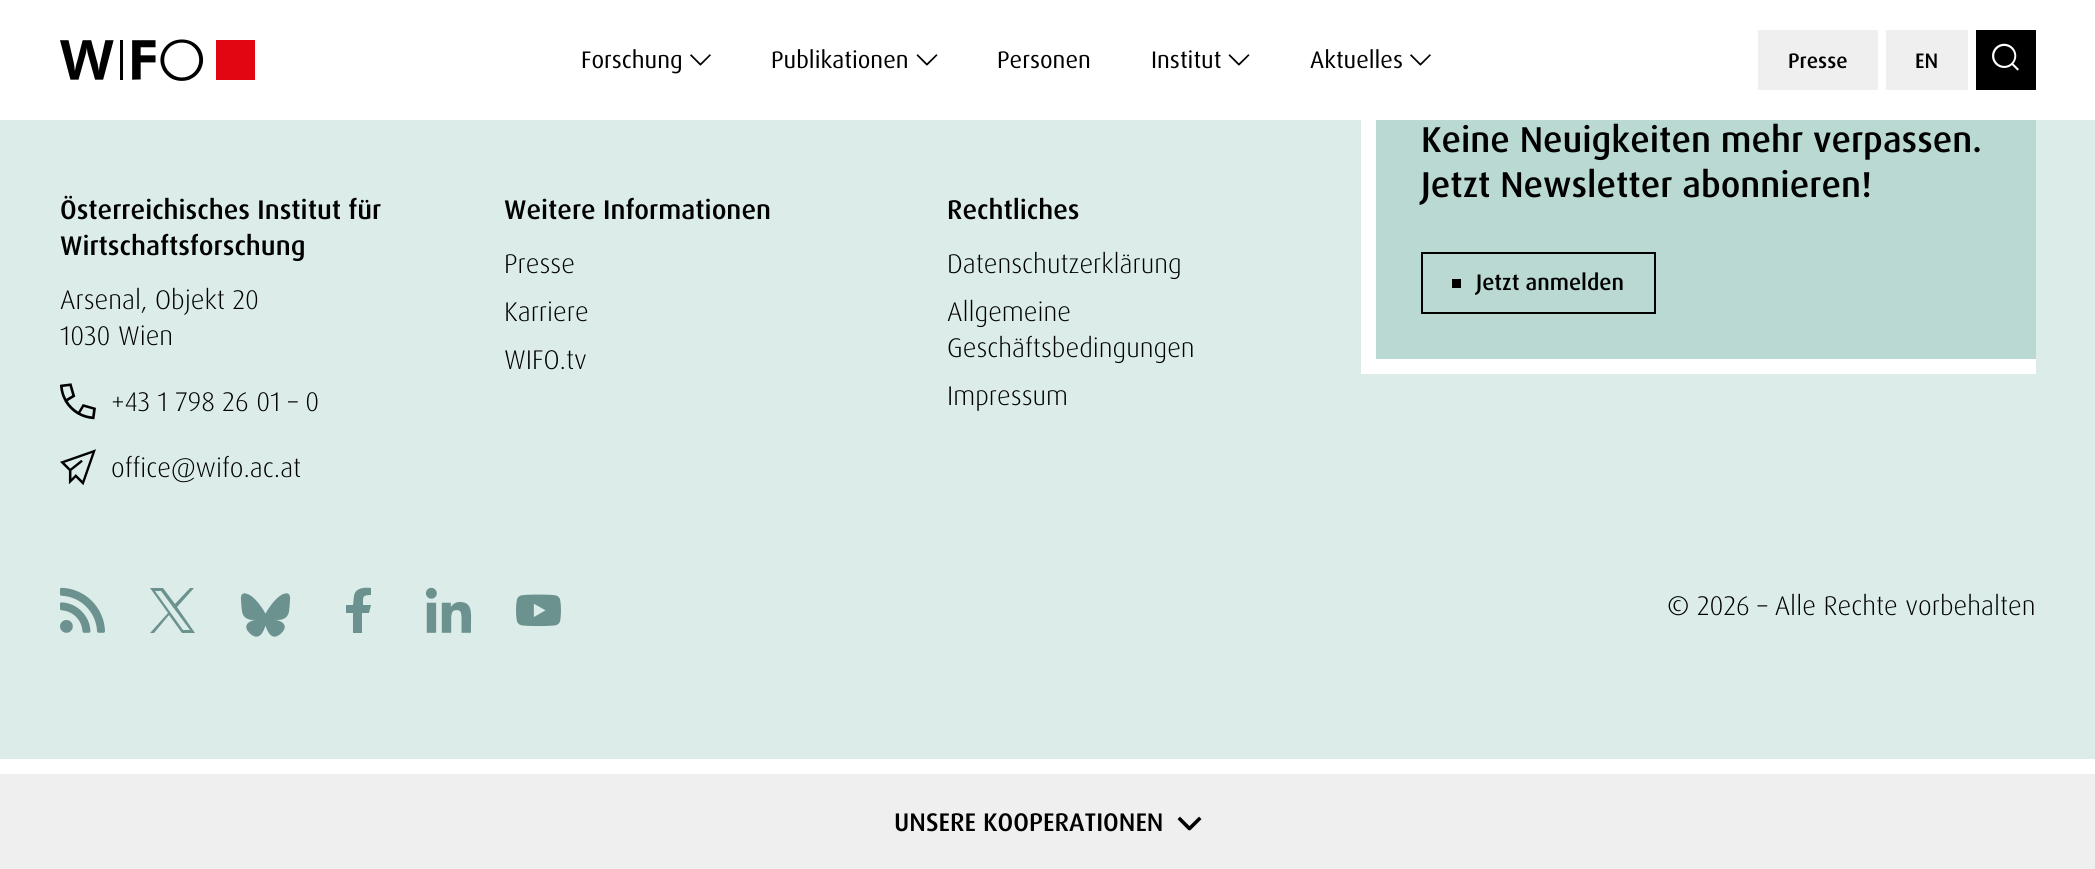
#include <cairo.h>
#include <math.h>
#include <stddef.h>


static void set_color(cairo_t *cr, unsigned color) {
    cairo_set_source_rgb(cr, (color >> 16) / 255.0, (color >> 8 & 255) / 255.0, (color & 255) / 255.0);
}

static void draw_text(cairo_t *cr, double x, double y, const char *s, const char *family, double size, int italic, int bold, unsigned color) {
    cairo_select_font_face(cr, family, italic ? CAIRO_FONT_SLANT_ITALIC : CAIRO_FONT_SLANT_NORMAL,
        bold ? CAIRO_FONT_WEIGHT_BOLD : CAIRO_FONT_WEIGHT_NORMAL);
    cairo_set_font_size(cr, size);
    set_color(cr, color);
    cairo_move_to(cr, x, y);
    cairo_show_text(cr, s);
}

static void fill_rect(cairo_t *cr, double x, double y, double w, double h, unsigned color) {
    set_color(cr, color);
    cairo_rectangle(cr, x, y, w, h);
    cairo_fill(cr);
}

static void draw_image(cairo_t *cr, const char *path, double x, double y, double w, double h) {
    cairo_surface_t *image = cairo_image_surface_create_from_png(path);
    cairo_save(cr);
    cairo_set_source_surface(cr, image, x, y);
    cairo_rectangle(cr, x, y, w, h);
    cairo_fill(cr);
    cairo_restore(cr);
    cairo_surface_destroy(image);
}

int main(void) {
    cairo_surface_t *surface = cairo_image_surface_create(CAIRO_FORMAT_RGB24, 2095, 869);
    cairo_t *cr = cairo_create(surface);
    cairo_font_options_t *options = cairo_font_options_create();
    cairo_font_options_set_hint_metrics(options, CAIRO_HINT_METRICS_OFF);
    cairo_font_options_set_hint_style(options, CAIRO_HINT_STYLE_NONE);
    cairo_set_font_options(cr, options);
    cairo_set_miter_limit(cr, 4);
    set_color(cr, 0xDBECE9);
    cairo_paint(cr);
    fill_rect(cr, 0, 0, 2095, 120, 0xFFFFFF);
    draw_image(cr, "assets/img1.png", 60, 39, 195, 42);
    draw_text(cr, 581, 68, "Forschung", "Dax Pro", 24, 0, 0, 0x000000);
    draw_image(cr, "assets/img2.png", 690, 54, 21, 12);
    draw_text(cr, 771, 68, "Publikationen", "Dax Pro", 24, 0, 0, 0x000000);
    draw_image(cr, "assets/img3.png", 916, 54, 22, 12);
    draw_text(cr, 997, 68, "Personen", "Dax Pro", 24, 0, 0, 0x000000);
    draw_text(cr, 1151, 68, "Institut", "Dax Pro", 24, 0, 0, 0x000000);
    draw_image(cr, "assets/img3.png", 1228, 54, 22, 12);
    draw_text(cr, 1310, 68, "Aktuelles", "Dax Pro", 24, 0, 0, 0x000000);
    draw_image(cr, "assets/img2.png", 1410, 54, 21, 12);
    fill_rect(cr, 1758, 30, 120, 60, 0xEFEFEF);
    draw_text(cr, 1788, 68, "Presse", "Dax Pro Medium", 21, 0, 0, 0x000000);
    fill_rect(cr, 1886, 30, 82, 60, 0xEFEFEF);
    draw_text(cr, 1915, 68, "EN", "Dax Pro Medium", 21, 0, 0, 0x000000);
    fill_rect(cr, 1976, 30, 60, 60, 0x000000);
    draw_image(cr, "assets/img4.png", 1992, 43, 27, 28);
    draw_text(cr, 60, 219, "Österreichisches Institut für", "Dax Pro Medium", 27, 0, 0, 0x000000);
    draw_text(cr, 60, 255, "Wirtschaftsforschung", "Dax Pro Medium", 27, 0, 0, 0x000000);
    draw_text(cr, 60, 309, "Arsenal, Objekt 20", "Dax Pro Light", 27, 0, 0, 0x000000);
    draw_text(cr, 60, 345, "1030 Wien", "Dax Pro Light", 27, 0, 0, 0x000000);
    draw_image(cr, "assets/img5.png", 60, 383, 36, 37);
    draw_text(cr, 111, 411, "+43 1 798 26 01 – 0", "Dax Pro Light", 27, 0, 0, 0x000000);
    draw_image(cr, "assets/img6.png", 60, 449, 36, 37);
    draw_text(cr, 111, 477, "office@wifo.ac.at", "Dax Pro Light", 27, 0, 0, 0x000000);
    draw_text(cr, 504, 219, "Weitere Informationen", "Dax Pro Medium", 27, 0, 0, 0x000000);
    draw_text(cr, 504, 273, "Presse", "Dax Pro Light", 27, 0, 0, 0x000000);
    draw_text(cr, 504, 321, "Karriere", "Dax Pro Light", 27, 0, 0, 0x000000);
    draw_text(cr, 504, 369, "WIFO.tv", "Dax Pro Light", 27, 0, 0, 0x000000);
    draw_text(cr, 947, 219, "Rechtliches", "Dax Pro Medium", 27, 0, 0, 0x000000);
    draw_text(cr, 947, 273, "Datenschutzerklärung", "Dax Pro Light", 27, 0, 0, 0x000000);
    draw_text(cr, 947, 321, "Allgemeine", "Dax Pro Light", 27, 0, 0, 0x000000);
    draw_text(cr, 947, 357, "Geschäftsbedingungen", "Dax Pro Light", 27, 0, 0, 0x000000);
    draw_text(cr, 947, 405, "Impressum", "Dax Pro Light", 27, 0, 0, 0x000000);
    fill_rect(cr, 1376, 120, 660, 239, 0xB9D9D2);
    fill_rect(cr, 1376, 359, 660, 15, 0xFFFFFF);
    fill_rect(cr, 1361, 120, 15, 254, 0xFFFFFF);
    draw_text(cr, 1421, 152, "Keine Neuigkeiten mehr verpassen.", "Dax Pro Medium", 36, 0, 0, 0x000000);
    draw_text(cr, 1421, 197, "Jetzt Newsletter abonnieren!", "Dax Pro Medium", 36, 0, 0, 0x000000);
    cairo_rectangle(cr, 1422, 253, 233, 60);
    cairo_stroke(cr);
    fill_rect(cr, 1452, 279, 9, 9, 0x000000);
    draw_text(cr, 1476, 290, "Jetzt anmelden", "Dax Pro Medium", 22.5, 0, 0, 0x000000);
    draw_image(cr, "assets/img7.png", 60, 587, 45, 46);
    set_color(cr, 0x6C928F);
    cairo_new_path(cr);
    cairo_move_to(cr, 177, 607);
    cairo_line_to(cr, 194, 588);
    cairo_line_to(cr, 190, 588);
    cairo_line_to(cr, 175, 604);
    cairo_line_to(cr, 163, 588);
    cairo_line_to(cr, 150, 588);
    cairo_line_to(cr, 168, 613);
    cairo_line_to(cr, 150, 633);
    cairo_line_to(cr, 154, 633);
    cairo_line_to(cr, 169, 615);
    cairo_line_to(cr, 182, 633);
    cairo_line_to(cr, 195, 633);
    cairo_close_path(cr);
    cairo_move_to(cr, 155, 591);
    cairo_line_to(cr, 161, 591);
    cairo_line_to(cr, 190, 630);
    cairo_line_to(cr, 183, 630);
    cairo_close_path(cr);
    cairo_fill(cr);
    draw_image(cr, "assets/img8.png", 240, 593, 51, 44);
    cairo_new_path(cr);
    cairo_move_to(cr, 369, 613);
    cairo_line_to(cr, 371, 605);
    cairo_line_to(cr, 363, 605);
    cairo_curve_to(cr, 363, 597, 362, 595, 371, 595);
    cairo_line_to(cr, 371, 588);
    cairo_curve_to(cr, 364, 587, 355, 588, 354, 596);
    cairo_line_to(cr, 353, 605);
    cairo_line_to(cr, 346, 605);
    cairo_line_to(cr, 346, 613);
    cairo_line_to(cr, 353, 613);
    cairo_line_to(cr, 353, 633);
    cairo_line_to(cr, 362, 633);
    cairo_line_to(cr, 362, 613);
    cairo_close_path(cr);
    cairo_fill(cr);
    draw_image(cr, "assets/img9.png", 425, 587, 47, 46);
    draw_image(cr, "assets/img10.png", 516, 594, 45, 33);
    draw_text(cr, 1667, 615, "© 2026 – Alle Rechte vorbehalten", "Dax Pro Light", 27, 0, 0, 0x000000);
    fill_rect(cr, 0, 759, 2095, 15, 0xFFFFFF);
    fill_rect(cr, 0, 774, 2095, 95, 0xEFEFEF);
    draw_text(cr, 894, 831, "UNSERE KOOPERATIONEN", "Dax Pro Medium", 25.5, 0, 0, 0x000000);
    draw_image(cr, "assets/img11.png", 1177, 816, 25, 15);
    cairo_surface_write_to_png(surface, "output.png");
    cairo_font_options_destroy(options);
    cairo_destroy(cr);
    cairo_surface_destroy(surface);
    return 0;
}
